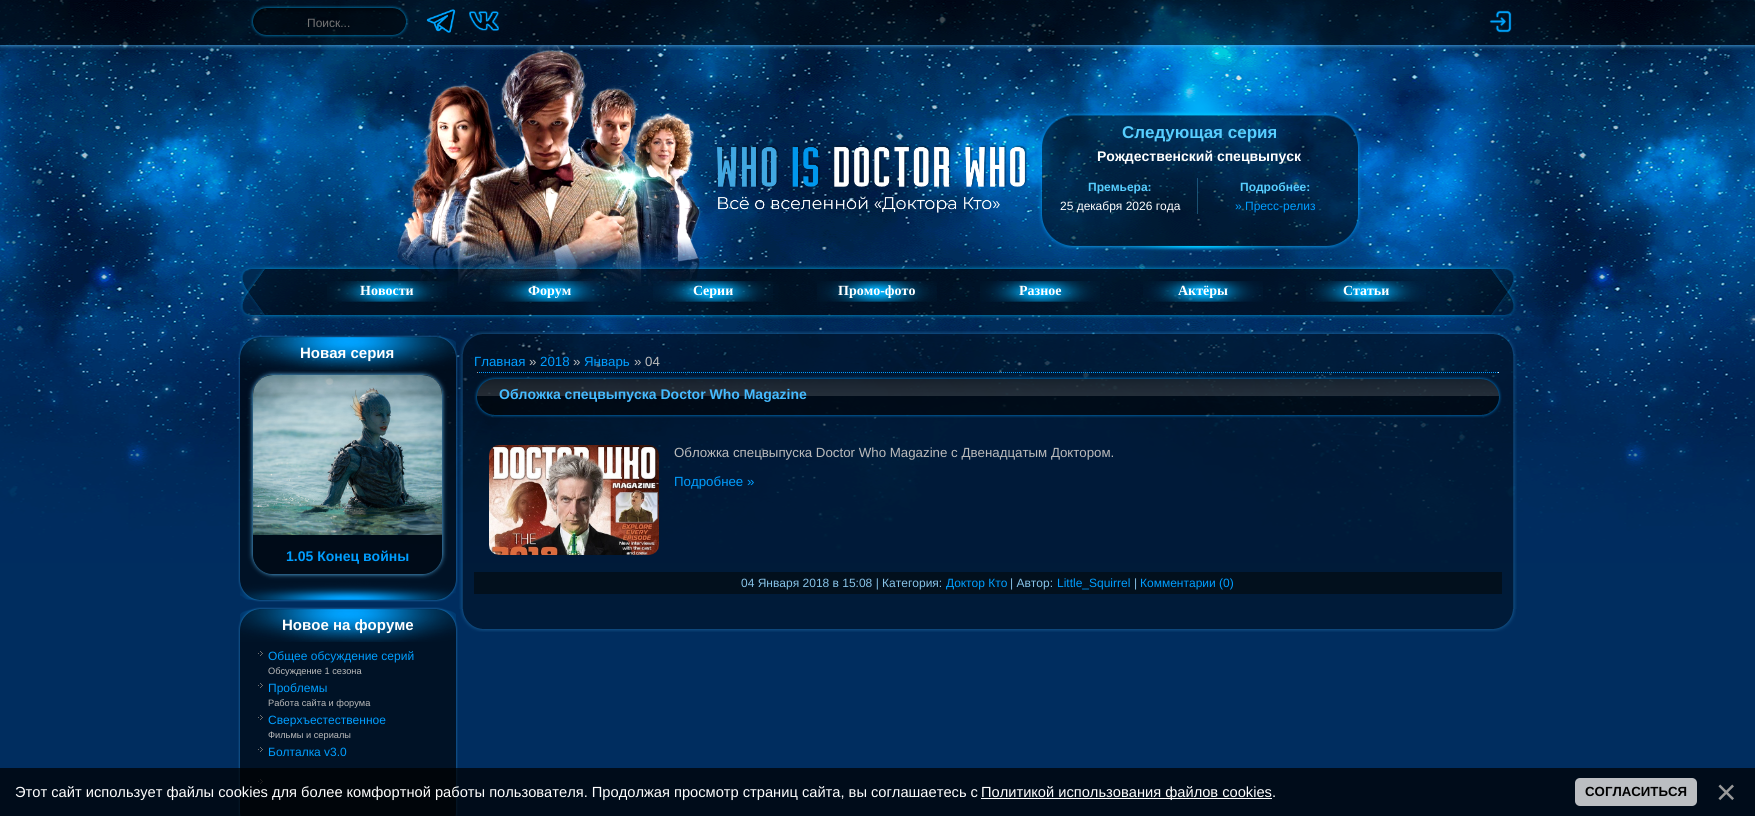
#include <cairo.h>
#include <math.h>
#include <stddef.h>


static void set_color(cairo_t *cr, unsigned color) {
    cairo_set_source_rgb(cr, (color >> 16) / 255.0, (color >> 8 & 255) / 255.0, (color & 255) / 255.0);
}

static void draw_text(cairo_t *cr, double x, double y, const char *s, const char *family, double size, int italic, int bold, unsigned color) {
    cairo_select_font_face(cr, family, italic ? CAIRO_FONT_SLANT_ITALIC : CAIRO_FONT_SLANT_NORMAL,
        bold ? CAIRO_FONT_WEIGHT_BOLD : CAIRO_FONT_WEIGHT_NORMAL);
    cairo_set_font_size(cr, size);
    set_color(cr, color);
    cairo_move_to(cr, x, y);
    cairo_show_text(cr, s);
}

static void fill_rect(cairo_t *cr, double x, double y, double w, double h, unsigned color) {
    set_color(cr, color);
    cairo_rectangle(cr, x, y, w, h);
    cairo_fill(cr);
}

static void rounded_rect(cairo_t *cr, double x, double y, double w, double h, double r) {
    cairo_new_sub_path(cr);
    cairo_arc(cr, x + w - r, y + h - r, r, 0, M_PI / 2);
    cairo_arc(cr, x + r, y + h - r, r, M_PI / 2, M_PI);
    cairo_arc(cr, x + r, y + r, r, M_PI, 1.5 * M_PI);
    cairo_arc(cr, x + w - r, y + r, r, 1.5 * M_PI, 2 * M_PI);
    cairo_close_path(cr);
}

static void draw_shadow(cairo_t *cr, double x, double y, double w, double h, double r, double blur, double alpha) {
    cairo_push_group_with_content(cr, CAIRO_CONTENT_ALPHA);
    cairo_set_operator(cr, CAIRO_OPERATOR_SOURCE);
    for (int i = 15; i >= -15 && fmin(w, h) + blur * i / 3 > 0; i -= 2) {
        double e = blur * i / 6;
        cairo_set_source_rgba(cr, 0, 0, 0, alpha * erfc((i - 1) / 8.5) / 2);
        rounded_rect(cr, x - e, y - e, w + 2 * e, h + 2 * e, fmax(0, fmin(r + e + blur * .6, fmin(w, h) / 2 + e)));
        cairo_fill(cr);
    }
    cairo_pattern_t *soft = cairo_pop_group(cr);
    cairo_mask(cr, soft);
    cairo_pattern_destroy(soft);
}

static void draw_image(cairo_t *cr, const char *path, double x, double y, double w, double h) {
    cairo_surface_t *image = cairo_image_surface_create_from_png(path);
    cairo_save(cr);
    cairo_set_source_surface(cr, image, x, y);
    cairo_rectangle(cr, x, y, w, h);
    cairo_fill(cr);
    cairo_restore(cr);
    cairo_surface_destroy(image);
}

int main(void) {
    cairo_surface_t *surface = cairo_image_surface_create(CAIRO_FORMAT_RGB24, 1755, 816);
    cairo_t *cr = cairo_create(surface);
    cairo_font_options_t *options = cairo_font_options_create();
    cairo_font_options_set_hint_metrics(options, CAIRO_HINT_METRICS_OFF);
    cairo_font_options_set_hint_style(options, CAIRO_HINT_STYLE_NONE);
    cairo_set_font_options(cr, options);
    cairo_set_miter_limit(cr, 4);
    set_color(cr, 0x002D5F);
    cairo_paint(cr);
    draw_image(cr, "assets/img1.png", 0, 0, 1755, 330);
    cairo_save(cr);
    cairo_rectangle(cr, 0, 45, 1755, 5);
    cairo_clip(cr);
    set_color(cr, 0x5FC4FF);
    draw_shadow(cr, 0, 0, 1755, 45, 0, 2.5, 1);
    cairo_restore(cr);
    cairo_set_source_rgba(cr, 0, 0, 0, 0.56);
    cairo_rectangle(cr, 0, 0, 1755, 45);
    cairo_fill(cr);
    draw_image(cr, "assets/img2.png", 250, 5, 159, 33);
    draw_text(cr, 307, 27, "Поиск...", "Liberation Sans", 12, 0, 0, 0x757575);
    draw_image(cr, "assets/img3.png", 426, 9, 30, 24);
    draw_image(cr, "assets/img4.png", 469, 11, 30, 20);
    draw_image(cr, "assets/img5.png", 1489, 10, 23, 23);
    draw_image(cr, "assets/img10.png", 286, 265, 1184, 54);
    draw_image(cr, "assets/img6.png", 397, 45, 304, 241);
    draw_image(cr, "assets/img7.png", 717, 145, 310, 68);
    draw_image(cr, "assets/img8.png", 1038, 18, 324, 234);
    draw_text(cr, 1122, 138, "Следующая серия", "Liberation Sans", 17, 0, 1, 0x57CEFF);
    draw_text(cr, 1097, 161, "Рождественский спецвыпуск", "Liberation Sans", 14, 0, 1, 0xFFFFFF);
    cairo_set_source_rgba(cr, 0.341, 0.808, 1, 0.3);
    cairo_rectangle(cr, 1197, 178, 1, 36);
    cairo_fill(cr);
    draw_text(cr, 1088, 191, "Премьера:", "Liberation Sans", 12, 0, 1, 0x57CEFF);
    draw_text(cr, 1060, 210, "25 декабря 2026 года", "Liberation Sans", 12, 0, 0, 0xFFFFFF);
    draw_text(cr, 1240, 191, "Подробнее:", "Liberation Sans", 12, 0, 1, 0x57CEFF);
    draw_text(cr, 1235, 210, "» Пресс-релиз", "Liberation Sans", 12, 0, 0, 0x009EFF);
    draw_image(cr, "assets/img9.png", 239, 265, 47, 54);
    draw_image(cr, "assets/img11.png", 327, 281, 120, 21);
    draw_text(cr, 360, 295, "Новости", "Liberation Serif", 14, 0, 1, 0xFFFFFF);
    draw_image(cr, "assets/img12.png", 490, 281, 120, 21);
    draw_text(cr, 528, 295, "Форум", "Liberation Serif", 14, 0, 1, 0xFFFFFF);
    draw_image(cr, "assets/img13.png", 653, 281, 120, 21);
    draw_text(cr, 693, 295, "Серии", "Liberation Serif", 14, 0, 1, 0xFFFFFF);
    draw_image(cr, "assets/img14.png", 817, 281, 120, 21);
    draw_text(cr, 838, 295, "Промо-фото", "Liberation Serif", 14, 0, 1, 0xFFFFFF);
    draw_image(cr, "assets/img15.png", 980, 281, 120, 21);
    draw_text(cr, 1019, 295, "Разное", "Liberation Serif", 14, 0, 1, 0xFFFFFF);
    draw_image(cr, "assets/img16.png", 1143, 281, 120, 21);
    draw_text(cr, 1178, 295, "Актёры", "Liberation Serif", 14, 0, 1, 0xFFFFFF);
    draw_image(cr, "assets/img17.png", 1306, 281, 120, 21);
    draw_text(cr, 1343, 295, "Статьи", "Liberation Serif", 14, 0, 1, 0xFFFFFF);
    draw_image(cr, "assets/img18.png", 1470, 265, 47, 54);
    draw_image(cr, "assets/img19.png", 0, 330, 1755, 233);
    draw_image(cr, "assets/img20.png", 238, 335, 220, 35);
    draw_text(cr, 300, 358, "Новая серия", "Liberation Sans", 15, 0, 1, 0xFFFFFF);
    draw_image(cr, "assets/img21.png", 238, 370, 220, 209);
    draw_image(cr, "assets/img23.png", 238, 579, 220, 23);
    cairo_save(cr);
    cairo_set_fill_rule(cr, CAIRO_FILL_RULE_EVEN_ODD);
    cairo_new_path(cr);
    cairo_move_to(cr, 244, 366);
    cairo_line_to(cr, 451, 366);
    cairo_line_to(cr, 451, 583);
    cairo_line_to(cr, 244, 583);
    cairo_close_path(cr);
    cairo_move_to(cr, 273, 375);
    cairo_line_to(cr, 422, 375);
    cairo_curve_to(cr, 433, 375, 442, 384, 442, 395);
    cairo_line_to(cr, 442, 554);
    cairo_curve_to(cr, 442, 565, 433, 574, 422, 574);
    cairo_line_to(cr, 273, 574);
    cairo_curve_to(cr, 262, 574, 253, 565, 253, 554);
    cairo_line_to(cr, 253, 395);
    cairo_curve_to(cr, 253, 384, 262, 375, 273, 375);
    cairo_close_path(cr);
    cairo_clip(cr);
    set_color(cr, 0x5FC4FF);
    draw_shadow(cr, 253, 375, 189, 199, 20, 2.5, 1);
    cairo_restore(cr);
    cairo_set_source_rgba(cr, 0, 0, 0, 0.38);
    rounded_rect(cr, 253, 375, 189, 199, 20);
    cairo_fill(cr);
    draw_image(cr, "assets/img22.png", 253, 375, 189, 160);
    draw_text(cr, 286, 561, "1.05 Конец войны", "Liberation Sans", 14, 0, 1, 0x009EFF);
    draw_image(cr, "assets/img24.png", 238, 607, 220, 35);
    draw_text(cr, 282, 630, "Новое на форуме", "Liberation Sans", 15, 0, 1, 0xFFFFFF);
    draw_image(cr, "assets/img25.png", 238, 642, 220, 170);
    draw_image(cr, "assets/img26.png", 258, 651, 5, 5);
    draw_text(cr, 268, 660, "Общее обсуждение серий", "Liberation Sans", 12, 0, 0, 0x009EFF);
    draw_text(cr, 268, 674, "Обсуждение 1 сезона", "Liberation Sans", 9.25, 0, 0, 0xBBBBBB);
    draw_image(cr, "assets/img26.png", 258, 683, 5, 5);
    draw_text(cr, 268, 692, "Проблемы", "Liberation Sans", 12, 0, 0, 0x009EFF);
    draw_text(cr, 268, 706, "Работа сайта и форума", "Liberation Sans", 9.25, 0, 0, 0xBBBBBB);
    draw_image(cr, "assets/img26.png", 258, 715, 5, 5);
    draw_text(cr, 268, 724, "Сверхъестественное", "Liberation Sans", 12, 0, 0, 0x009EFF);
    draw_text(cr, 268, 738, "Фильмы и сериалы", "Liberation Sans", 9.25, 0, 0, 0xBBBBBB);
    draw_image(cr, "assets/img26.png", 258, 747, 5, 5);
    draw_text(cr, 268, 756, "Болталка v3.0", "Liberation Sans", 12, 0, 0, 0x009EFF);
    draw_image(cr, "assets/img26.png", 258, 779, 5, 5);
    draw_image(cr, "assets/img27.png", 238, 812, 220, 4);
    draw_image(cr, "assets/img28.png", 460, 331, 30, 23);
    draw_image(cr, "assets/img29.png", 490, 331, 996, 23);
    draw_image(cr, "assets/img30.png", 1486, 331, 30, 23);
    draw_image(cr, "assets/img31.png", 459, 354, 15, 255);
    cairo_set_source_rgba(cr, 0, 0, 0, 0.4);
    cairo_rectangle(cr, 474, 354, 1028, 255);
    cairo_fill(cr);
    draw_text(cr, 474, 366, "Главная", "Liberation Sans", 13.3, 0, 0, 0x009EFF);
    draw_text(cr, 529, 366, "»", "Liberation Sans", 13.3, 0, 0, 0xBBBBBB);
    draw_text(cr, 540, 366, "2018", "Liberation Sans", 13.3, 0, 0, 0x009EFF);
    draw_text(cr, 573, 366, "»", "Liberation Sans", 13.3, 0, 0, 0xBBBBBB);
    draw_text(cr, 584, 366, "Январь", "Liberation Sans", 13.3, 0, 0, 0x009EFF);
    draw_text(cr, 634, 366, "» 04", "Liberation Sans", 13.3, 0, 0, 0xBBBBBB);
    cairo_new_path(cr);
    cairo_move_to(cr, 477, 372.5);
    cairo_line_to(cr, 1499, 372.5);
    set_color(cr, 0x009EFF);
    cairo_set_line_width(cr, 1);
    cairo_set_dash(cr, (double[]){1, 1}, 2, 0);
    cairo_stroke(cr);
    fill_rect(cr, 1498, 372, 1, 1, 0xEEEEEE);
    fill_rect(cr, 477, 372, 1, 1, 0x9F9F9F);
    draw_image(cr, "assets/img32.png", 474, 376, 924, 42);
    draw_text(cr, 499, 399, "Обложка спецвыпуска Doctor Who Magazine", "Liberation Sans", 14, 0, 1, 0x45BBFF);
    draw_image(cr, "assets/img33.png", 1398, 376, 104, 42);
    draw_image(cr, "assets/img34.png", 489, 445, 170, 110);
    draw_text(cr, 674, 457, "Обложка спецвыпуска Doctor Who Magazine с Двенадцатым Доктором.", "Liberation Sans", 13.3, 0, 0, 0xBBBBBB);
    draw_text(cr, 674, 486, "Подробнее »", "Liberation Sans", 13.3, 0, 0, 0x009EFF);
    fill_rect(cr, 474, 572, 1028, 22, 0x02101D);
    draw_text(cr, 741, 587, "04 Января 2018 в 15:08 | Категория:", "Liberation Sans", 12, 0, 0, 0x87C3E8);
    draw_text(cr, 946, 587, "Доктор Кто", "Liberation Sans", 12, 0, 0, 0x009EFF);
    draw_text(cr, 1010, 587, "| Автор:", "Liberation Sans", 12, 0, 0, 0x87C3E8);
    draw_text(cr, 1057, 587, "Little_Squirrel", "Liberation Sans", 12, 0, 0, 0x009EFF);
    draw_text(cr, 1134, 587, "|", "Liberation Sans", 12, 0, 0, 0x87C3E8);
    draw_text(cr, 1140, 587, "Комментарии (0)", "Liberation Sans", 12, 0, 0, 0x009EFF);
    draw_image(cr, "assets/img35.png", 1502, 354, 15, 255);
    draw_image(cr, "assets/img36.png", 460, 609, 30, 23);
    draw_image(cr, "assets/img37.png", 490, 609, 996, 23);
    draw_image(cr, "assets/img38.png", 1486, 609, 30, 23);
    cairo_set_source_rgba(cr, 0, 0, 0, 0.73);
    cairo_rectangle(cr, 0, 768, 1755, 48);
    cairo_fill(cr);
    draw_text(cr, 15, 797, "Этот сайт использует файлы cookies для более комфортной работы пользователя. Продолжая просмотр страниц сайта, вы соглашаетесь с", "Liberation Sans", 14.67, 0, 0, 0xFFFFFF);
    fill_rect(cr, 981, 798, 291, 1, 0xFFFFFF);
    draw_text(cr, 981, 797, "Политикой использования файлов cookies.", "Liberation Sans", 14.67, 0, 0, 0xFFFFFF);
    set_color(cr, 0xBBBEC2);
    rounded_rect(cr, 1575, 778, 122, 28, 5);
    cairo_fill(cr);
    draw_text(cr, 1585, 796, "СОГЛАСИТЬСЯ", "Liberation Sans", 13.25, 0, 1, 0x000000);
    draw_text(cr, 1716, 804, "×", "Liberation Sans", 35, 0, 0, 0x999999);
    cairo_surface_write_to_png(surface, "output.png");
    cairo_font_options_destroy(options);
    cairo_destroy(cr);
    cairo_surface_destroy(surface);
    return 0;
}
